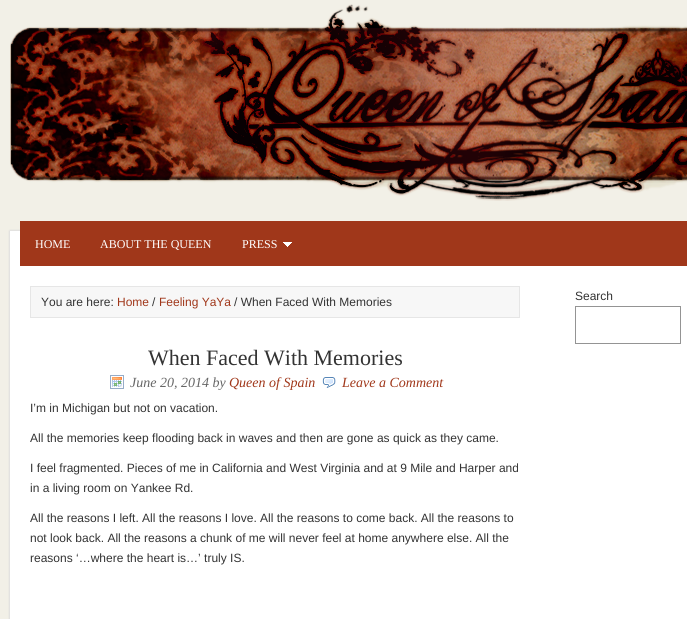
#include <cairo.h>
#include <math.h>
#include <stddef.h>


static void set_color(cairo_t *cr, unsigned color) {
    cairo_set_source_rgb(cr, (color >> 16) / 255.0, (color >> 8 & 255) / 255.0, (color & 255) / 255.0);
}

static void draw_text(cairo_t *cr, double x, double y, const char *s, const char *family, double size, int italic, int bold, unsigned color) {
    cairo_select_font_face(cr, family, italic ? CAIRO_FONT_SLANT_ITALIC : CAIRO_FONT_SLANT_NORMAL,
        bold ? CAIRO_FONT_WEIGHT_BOLD : CAIRO_FONT_WEIGHT_NORMAL);
    cairo_set_font_size(cr, size);
    set_color(cr, color);
    cairo_move_to(cr, x, y);
    cairo_show_text(cr, s);
}

static void fill_rect(cairo_t *cr, double x, double y, double w, double h, unsigned color) {
    set_color(cr, color);
    cairo_rectangle(cr, x, y, w, h);
    cairo_fill(cr);
}

static void draw_image(cairo_t *cr, const char *path, double x, double y, double w, double h) {
    cairo_surface_t *image = cairo_image_surface_create_from_png(path);
    cairo_save(cr);
    cairo_set_source_surface(cr, image, x, y);
    cairo_rectangle(cr, x, y, w, h);
    cairo_fill(cr);
    cairo_restore(cr);
    cairo_surface_destroy(image);
}

int main(void) {
    cairo_surface_t *surface = cairo_image_surface_create(CAIRO_FORMAT_RGB24, 687, 619);
    cairo_t *cr = cairo_create(surface);
    cairo_font_options_t *options = cairo_font_options_create();
    cairo_font_options_set_hint_metrics(options, CAIRO_HINT_METRICS_OFF);
    cairo_font_options_set_hint_style(options, CAIRO_HINT_STYLE_NONE);
    cairo_set_font_options(cr, options);
    cairo_set_miter_limit(cr, 4);
    set_color(cr, 0xF2F0E7);
    cairo_paint(cr);
    draw_image(cr, "assets/img1.png", 10, 4, 677, 197);
    draw_image(cr, "assets/img2.png", 8, 229, 12, 37);
    fill_rect(cr, 20, 221, 667, 45, 0xA0371A);
    draw_text(cr, 35, 248, "HOME", "Liberation Serif", 12, 0, 0, 0xFFFFFF);
    draw_text(cr, 100, 248, "ABOUT THE QUEEN", "Liberation Serif", 12, 0, 0, 0xFFFFFF);
    draw_text(cr, 242, 248, "PRESS", "Liberation Serif", 12, 0, 0, 0xFFFFFF);
    draw_image(cr, "assets/img3.png", 283, 242, 9, 5);
    draw_image(cr, "assets/img4.png", 8, 266, 679, 353);
    draw_text(cr, 575, 300, "Search", "Liberation Sans", 12, 0, 0, 0x333333);
    cairo_rectangle(cr, 575.5, 306.5, 105, 37);
    set_color(cr, 0x949494);
    cairo_set_line_width(cr, 1);
    cairo_stroke(cr);
    set_color(cr, 0xF7F7F7);
    cairo_rectangle(cr, 30.5, 286.5, 489, 31);
    cairo_fill_preserve(cr);
    set_color(cr, 0xE6E6E6);
    cairo_stroke(cr);
    draw_text(cr, 41, 306, "You are here:", "Liberation Sans", 12, 0, 0, 0x333333);
    draw_text(cr, 117, 306, "Home", "Liberation Sans", 12, 0, 0, 0xA0371A);
    draw_text(cr, 152, 306, "/", "Liberation Sans", 12, 0, 0, 0x333333);
    draw_text(cr, 159, 306, "Feeling YaYa", "Liberation Sans", 12, 0, 0, 0xA0371A);
    draw_text(cr, 234, 306, "/ When Faced With Memories", "Liberation Sans", 12, 0, 0, 0x333333);
    draw_text(cr, 148, 365, "When Faced With Memories", "Liberation Serif", 22, 0, 0, 0x333333);
    draw_image(cr, "assets/img5.png", 110, 375, 14, 14);
    draw_text(cr, 130, 387, "June 20, 2014 by", "Liberation Serif", 14, 1, 0, 0x666666);
    draw_text(cr, 229, 387, "Queen of Spain", "Liberation Serif", 14, 1, 0, 0xA0371A);
    draw_image(cr, "assets/img6.png", 322, 377, 14, 11);
    draw_text(cr, 342, 387, "Leave a Comment", "Liberation Serif", 14, 1, 0, 0xA0371A);
    draw_text(cr, 30, 412, "I’m in Michigan but not on vacation.", "Liberation Sans", 12, 0, 0, 0x333333);
    draw_text(cr, 30, 442, "All the memories keep flooding back in waves and then are gone as quick as they came.", "Liberation Sans", 12, 0, 0, 0x333333);
    draw_text(cr, 30, 472, "I feel fragmented. Pieces of me in California and West Virginia and at 9 Mile and Harper and", "Liberation Sans", 12, 0, 0, 0x333333);
    draw_text(cr, 30, 492, "in a living room on Yankee Rd.", "Liberation Sans", 12, 0, 0, 0x333333);
    draw_text(cr, 30, 522, "All the reasons I left. All the reasons I love. All the reasons to come back. All the reasons to", "Liberation Sans", 12, 0, 0, 0x333333);
    draw_text(cr, 30, 542, "not look back. All the reasons a chunk of me will never feel at home anywhere else. All the", "Liberation Sans", 12, 0, 0, 0x333333);
    draw_text(cr, 30, 562, "reasons ‘…where the heart is…’ truly IS.", "Liberation Sans", 12, 0, 0, 0x333333);
    cairo_surface_write_to_png(surface, "output.png");
    cairo_font_options_destroy(options);
    cairo_destroy(cr);
    cairo_surface_destroy(surface);
    return 0;
}
